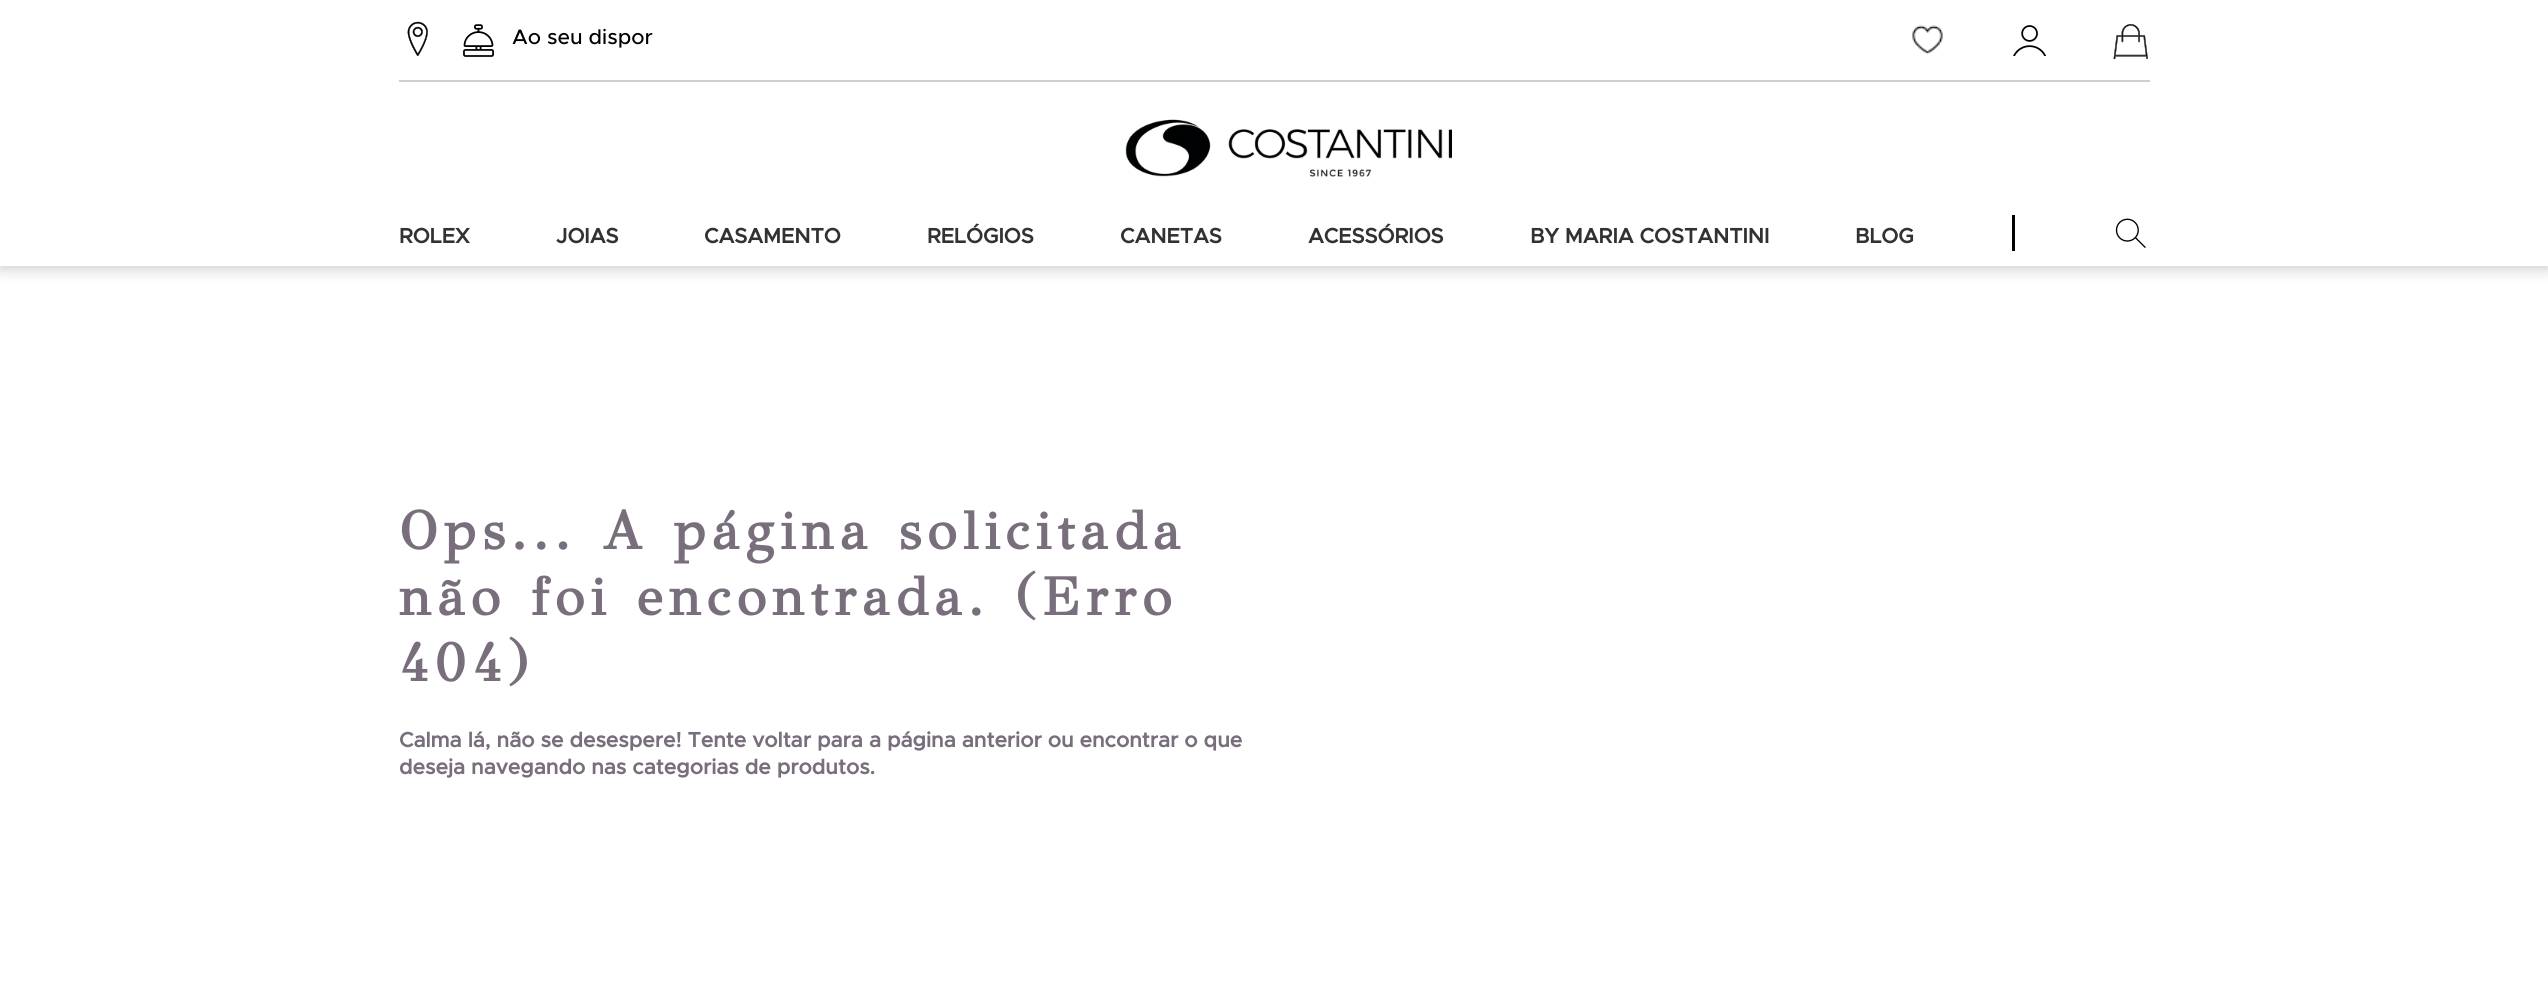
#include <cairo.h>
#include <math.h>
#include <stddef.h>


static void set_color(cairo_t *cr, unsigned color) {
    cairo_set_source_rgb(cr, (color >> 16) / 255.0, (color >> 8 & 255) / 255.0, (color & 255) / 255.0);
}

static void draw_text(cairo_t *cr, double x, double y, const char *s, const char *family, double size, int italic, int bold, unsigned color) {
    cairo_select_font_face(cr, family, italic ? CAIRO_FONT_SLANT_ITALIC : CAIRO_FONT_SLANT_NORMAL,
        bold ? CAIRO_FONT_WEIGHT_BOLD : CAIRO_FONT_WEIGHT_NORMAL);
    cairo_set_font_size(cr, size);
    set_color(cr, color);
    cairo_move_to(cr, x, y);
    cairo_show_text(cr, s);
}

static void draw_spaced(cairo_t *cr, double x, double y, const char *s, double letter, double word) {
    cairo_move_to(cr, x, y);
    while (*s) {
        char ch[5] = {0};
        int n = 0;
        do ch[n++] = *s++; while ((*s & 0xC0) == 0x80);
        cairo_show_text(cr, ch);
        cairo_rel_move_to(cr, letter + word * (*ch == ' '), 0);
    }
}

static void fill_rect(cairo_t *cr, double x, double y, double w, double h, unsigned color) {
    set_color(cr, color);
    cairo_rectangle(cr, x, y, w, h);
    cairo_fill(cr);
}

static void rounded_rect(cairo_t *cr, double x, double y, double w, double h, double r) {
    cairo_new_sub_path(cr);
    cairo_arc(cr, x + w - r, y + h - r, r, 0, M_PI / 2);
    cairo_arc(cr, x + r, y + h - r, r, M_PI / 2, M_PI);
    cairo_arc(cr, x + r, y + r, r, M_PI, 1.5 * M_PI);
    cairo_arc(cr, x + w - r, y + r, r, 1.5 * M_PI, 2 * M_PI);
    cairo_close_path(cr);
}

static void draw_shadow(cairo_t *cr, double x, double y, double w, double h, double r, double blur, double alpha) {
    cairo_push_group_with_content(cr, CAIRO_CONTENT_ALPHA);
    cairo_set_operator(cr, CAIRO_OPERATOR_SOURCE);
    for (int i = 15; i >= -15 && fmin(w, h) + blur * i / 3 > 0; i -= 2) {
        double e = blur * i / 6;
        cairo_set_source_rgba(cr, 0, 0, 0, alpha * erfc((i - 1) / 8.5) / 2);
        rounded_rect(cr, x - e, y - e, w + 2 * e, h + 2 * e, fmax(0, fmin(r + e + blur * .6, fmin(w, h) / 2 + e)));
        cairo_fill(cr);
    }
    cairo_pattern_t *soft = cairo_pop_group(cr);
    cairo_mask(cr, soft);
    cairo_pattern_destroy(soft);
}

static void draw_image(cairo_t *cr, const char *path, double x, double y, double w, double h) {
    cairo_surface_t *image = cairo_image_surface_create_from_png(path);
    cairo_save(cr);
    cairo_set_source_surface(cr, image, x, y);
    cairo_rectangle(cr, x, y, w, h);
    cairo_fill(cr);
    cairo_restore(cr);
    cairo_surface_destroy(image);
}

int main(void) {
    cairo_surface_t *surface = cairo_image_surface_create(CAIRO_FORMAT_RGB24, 2548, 1001);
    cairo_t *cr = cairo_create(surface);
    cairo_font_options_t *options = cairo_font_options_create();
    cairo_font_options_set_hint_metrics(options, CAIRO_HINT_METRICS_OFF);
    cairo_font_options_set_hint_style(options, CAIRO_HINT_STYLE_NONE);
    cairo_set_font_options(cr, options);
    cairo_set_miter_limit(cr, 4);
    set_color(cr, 0xFFFFFF);
    cairo_paint(cr);
    set_color(cr, 0x000000);
    draw_shadow(cr, 0, 3, 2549, 266, 0, 7.5, 0.2);
    fill_rect(cr, 0, 0, 2548, 266, 0xFFFFFF);
    fill_rect(cr, 399, 80, 1751, 2, 0xD2CECC);
    draw_image(cr, "assets/img1.png", 407, 21, 21, 35);
    draw_image(cr, "assets/img2.png", 463, 24, 31, 33);
    draw_text(cr, 512, 44, "Ao seu dispor", "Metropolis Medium", 21, 0, 0, 0x000000);
    draw_image(cr, "assets/img3.png", 1912, 25, 31, 30);
    draw_image(cr, "assets/img4.png", 2013, 25, 34, 31);
    draw_image(cr, "assets/img5.png", 2113, 24, 35, 35);
    draw_image(cr, "assets/img6.png", 1125, 119, 327, 58);
    fill_rect(cr, 2012, 215, 3, 36, 0x000000);
    draw_text(cr, 399, 243, "ROLEX", "Metropolis", 21, 0, 1, 0x323232);
    draw_text(cr, 556, 243, "JOIAS", "Metropolis", 21, 0, 1, 0x323232);
    draw_text(cr, 704, 243, "CASAMENTO", "Metropolis", 21, 0, 1, 0x323232);
    draw_text(cr, 927, 243, "RELÓGIOS", "Metropolis", 21, 0, 1, 0x323232);
    draw_text(cr, 1120, 243, "CANETAS", "Metropolis", 21, 0, 1, 0x323232);
    draw_text(cr, 1308, 243, "ACESSÓRIOS", "Metropolis", 21, 0, 1, 0x323232);
    draw_text(cr, 1530, 243, "BY MARIA COSTANTINI", "Metropolis", 21, 0, 1, 0x323232);
    draw_text(cr, 1855, 243, "BLOG", "Metropolis", 21, 0, 1, 0x323232);
    draw_image(cr, "assets/img7.png", 2115, 218, 31, 30);
    cairo_select_font_face(cr, "GFS Didot", CAIRO_FONT_SLANT_NORMAL, CAIRO_FONT_WEIGHT_BOLD);
    cairo_set_font_size(cr, 54);
    set_color(cr, 0x796E7C);
    draw_spaced(cr, 399, 549, "Ops... A página solicitada", 6.3, 0);
    draw_spaced(cr, 399, 615, "não foi encontrada. (Erro", 6.3, 0);
    draw_spaced(cr, 399, 681, "404)", 6.3, 0);
    draw_text(cr, 399, 747, "Calma lá, não se desespere! Tente voltar para a página anterior ou encontrar o que", "Metropolis", 21, 0, 1, 0x796E7C);
    draw_text(cr, 399, 774, "deseja navegando nas categorias de produtos.", "Metropolis", 21, 0, 1, 0x796E7C);
    cairo_surface_write_to_png(surface, "output.png");
    cairo_font_options_destroy(options);
    cairo_destroy(cr);
    cairo_surface_destroy(surface);
    return 0;
}
